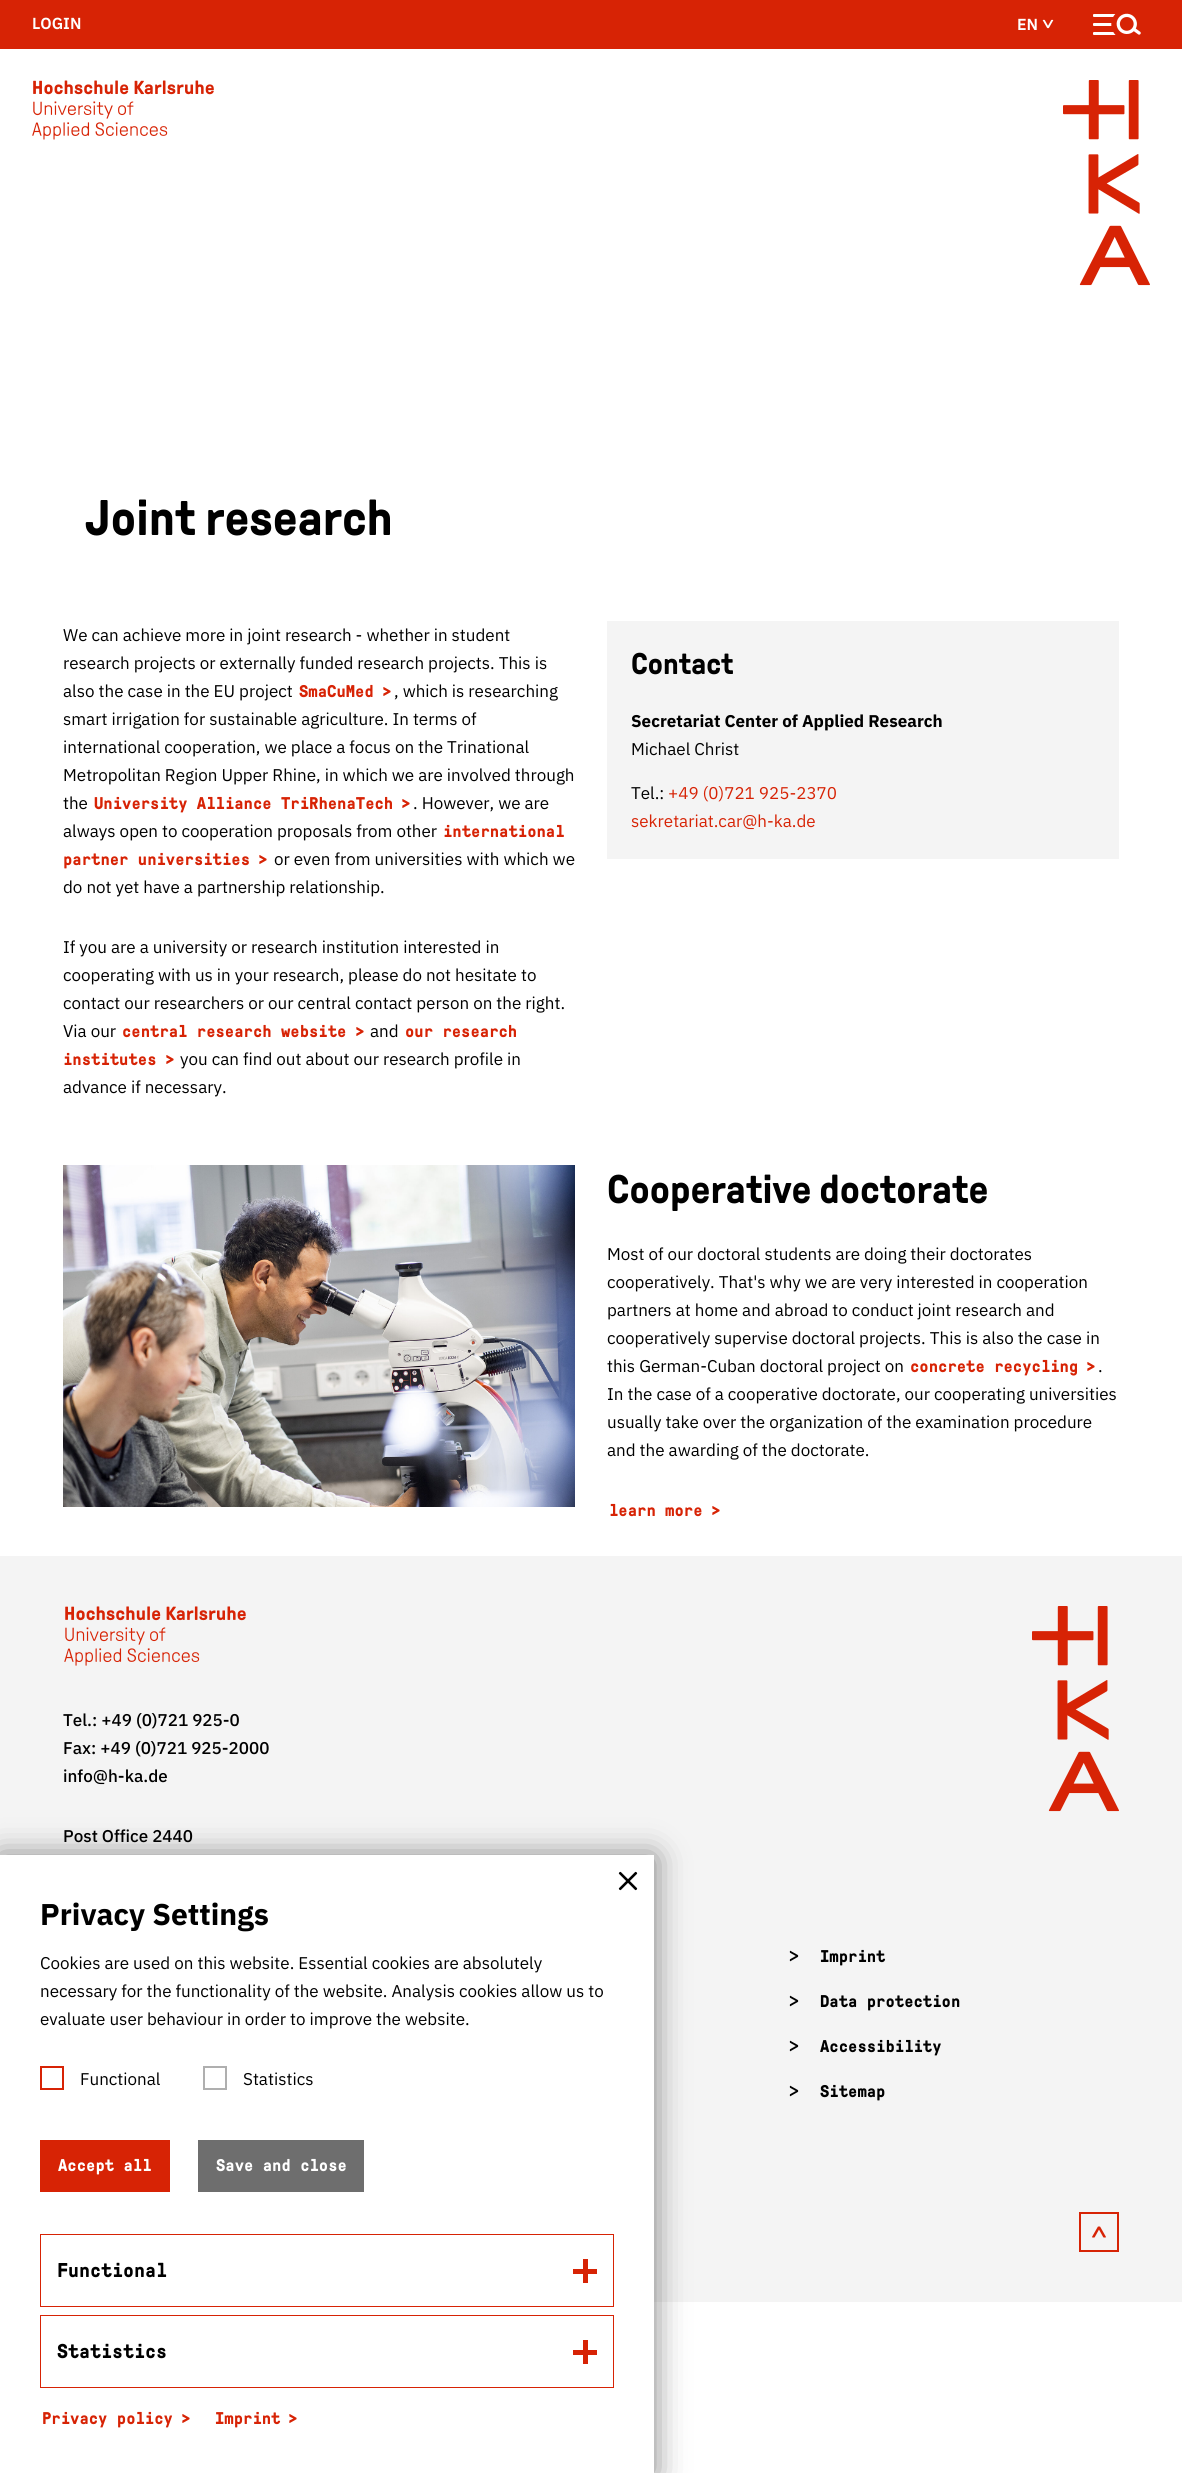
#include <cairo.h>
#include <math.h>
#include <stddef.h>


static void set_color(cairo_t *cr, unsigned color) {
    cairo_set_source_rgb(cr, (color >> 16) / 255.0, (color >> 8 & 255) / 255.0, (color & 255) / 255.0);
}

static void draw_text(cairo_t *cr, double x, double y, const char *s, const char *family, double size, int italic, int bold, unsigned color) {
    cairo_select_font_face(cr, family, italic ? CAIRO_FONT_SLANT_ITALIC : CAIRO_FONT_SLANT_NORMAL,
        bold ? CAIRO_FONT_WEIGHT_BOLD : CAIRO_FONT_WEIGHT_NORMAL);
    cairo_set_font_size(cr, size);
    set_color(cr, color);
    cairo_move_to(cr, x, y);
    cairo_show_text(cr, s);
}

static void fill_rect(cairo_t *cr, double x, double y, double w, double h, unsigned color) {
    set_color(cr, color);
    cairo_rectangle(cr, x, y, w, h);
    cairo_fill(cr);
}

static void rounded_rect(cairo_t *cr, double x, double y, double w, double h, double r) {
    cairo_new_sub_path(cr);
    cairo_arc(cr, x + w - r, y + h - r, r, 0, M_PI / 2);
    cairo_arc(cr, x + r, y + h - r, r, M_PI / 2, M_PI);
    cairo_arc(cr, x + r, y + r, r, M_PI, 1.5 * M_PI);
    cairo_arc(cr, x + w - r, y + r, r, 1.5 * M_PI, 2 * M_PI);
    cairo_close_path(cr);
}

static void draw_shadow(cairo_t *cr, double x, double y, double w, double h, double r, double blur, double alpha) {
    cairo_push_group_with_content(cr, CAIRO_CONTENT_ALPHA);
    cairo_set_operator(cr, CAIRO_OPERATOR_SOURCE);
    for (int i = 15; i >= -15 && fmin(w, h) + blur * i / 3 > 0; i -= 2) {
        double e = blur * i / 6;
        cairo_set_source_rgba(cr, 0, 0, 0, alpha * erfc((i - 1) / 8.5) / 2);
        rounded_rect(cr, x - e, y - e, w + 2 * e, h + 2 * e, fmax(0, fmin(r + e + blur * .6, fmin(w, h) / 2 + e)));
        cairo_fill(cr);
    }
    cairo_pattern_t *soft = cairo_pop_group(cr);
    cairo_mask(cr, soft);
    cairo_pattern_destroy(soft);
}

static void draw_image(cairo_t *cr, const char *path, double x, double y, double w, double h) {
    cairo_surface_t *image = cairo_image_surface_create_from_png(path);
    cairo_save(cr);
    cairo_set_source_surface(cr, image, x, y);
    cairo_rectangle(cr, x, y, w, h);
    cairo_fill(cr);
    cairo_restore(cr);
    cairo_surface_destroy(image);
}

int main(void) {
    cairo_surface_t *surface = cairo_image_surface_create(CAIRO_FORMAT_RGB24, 1182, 2473);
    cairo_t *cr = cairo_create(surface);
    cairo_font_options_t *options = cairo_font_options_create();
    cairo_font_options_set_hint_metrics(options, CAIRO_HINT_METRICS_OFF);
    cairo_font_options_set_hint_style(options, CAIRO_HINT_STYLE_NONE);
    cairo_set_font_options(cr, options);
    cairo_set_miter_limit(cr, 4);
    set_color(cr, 0xFFFFFF);
    cairo_paint(cr);
    fill_rect(cr, 0, 0, 1182, 49, 0xD72305);
    draw_text(cr, 32, 29, "LOGIN", "IBM Plex Sans SemiBold", 16, 0, 0, 0xFFFFFF);
    draw_text(cr, 1017, 30, "EN", "IBM Plex Sans SemiBold", 16, 0, 0, 0xFFFFFF);
    draw_image(cr, "assets/img1.png", 1042, 19, 12, 10);
    draw_image(cr, "assets/img2.png", 1093, 13, 48, 22);
    draw_image(cr, "assets/img3.png", 32, 80, 182, 60);
    draw_image(cr, "assets/img4.png", 1063, 80, 87, 206);
    draw_text(cr, 85, 535, "Joint research", "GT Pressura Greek", 50, 0, 1, 0x000000);
    draw_text(cr, 63, 641, "We can achieve more in joint research - whether in student", "IBM Plex Sans", 17, 0, 0, 0x000000);
    draw_text(cr, 63, 669, "research projects or externally funded research projects. This is", "IBM Plex Sans", 17, 0, 0, 0x000000);
    draw_text(cr, 63, 697, "also the case in the EU project", "IBM Plex Sans", 17, 0, 0, 0x000000);
    draw_text(cr, 299, 697, "SmaCuMed", "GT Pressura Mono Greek", 17, 0, 1, 0xD72305);
    draw_text(cr, 382, 696, ">", "GT Pressura Mono Greek", 18, 0, 1, 0xD72305);
    draw_text(cr, 394, 697, ", which is researching", "IBM Plex Sans", 17, 0, 0, 0x000000);
    draw_text(cr, 63, 725, "smart irrigation for sustainable agriculture. In terms of", "IBM Plex Sans", 17, 0, 0, 0x000000);
    draw_text(cr, 63, 753, "international cooperation, we place a focus on the Trinational", "IBM Plex Sans", 17, 0, 0, 0x000000);
    draw_text(cr, 63, 781, "Metropolitan Region Upper Rhine, in which we are involved through", "IBM Plex Sans", 17, 0, 0, 0x000000);
    draw_text(cr, 63, 809, "the", "IBM Plex Sans", 17, 0, 0, 0x000000);
    draw_text(cr, 94, 809, "University Alliance TriRhenaTech", "GT Pressura Mono Greek", 17, 0, 1, 0xD72305);
    draw_text(cr, 401, 808, ">", "GT Pressura Mono Greek", 18, 0, 1, 0xD72305);
    draw_text(cr, 413, 809, ". However, we are", "IBM Plex Sans", 17, 0, 0, 0x000000);
    draw_text(cr, 63, 837, "always open to cooperation proposals from other", "IBM Plex Sans", 17, 0, 0, 0x000000);
    draw_text(cr, 443, 837, "international", "GT Pressura Mono Greek", 17, 0, 1, 0xD72305);
    draw_text(cr, 63, 865, "partner universities", "GT Pressura Mono Greek", 17, 0, 1, 0xD72305);
    draw_text(cr, 258, 864, ">", "GT Pressura Mono Greek", 18, 0, 1, 0xD72305);
    draw_text(cr, 274, 865, "or even from universities with which we", "IBM Plex Sans", 17, 0, 0, 0x000000);
    draw_text(cr, 63, 893, "do not yet have a partnership relationship.", "IBM Plex Sans", 17, 0, 0, 0x000000);
    draw_text(cr, 63, 953, "If you are a university or research institution interested in", "IBM Plex Sans", 17, 0, 0, 0x000000);
    draw_text(cr, 63, 981, "cooperating with us in your research, please do not hesitate to", "IBM Plex Sans", 17, 0, 0, 0x000000);
    draw_text(cr, 63, 1009, "contact our researchers or our central contact person on the right.", "IBM Plex Sans", 17, 0, 0, 0x000000);
    draw_text(cr, 63, 1037, "Via our", "IBM Plex Sans", 17, 0, 0, 0x000000);
    draw_text(cr, 122, 1037, "central research website", "GT Pressura Mono Greek", 17, 0, 1, 0xD72305);
    draw_text(cr, 355, 1036, ">", "GT Pressura Mono Greek", 18, 0, 1, 0xD72305);
    draw_text(cr, 370, 1037, "and", "IBM Plex Sans", 17, 0, 0, 0x000000);
    draw_text(cr, 405, 1037, "our research", "GT Pressura Mono Greek", 17, 0, 1, 0xD72305);
    draw_text(cr, 63, 1065, "institutes", "GT Pressura Mono Greek", 17, 0, 1, 0xD72305);
    draw_text(cr, 165, 1064, ">", "GT Pressura Mono Greek", 18, 0, 1, 0xD72305);
    draw_text(cr, 180, 1065, "you can find out about our research profile in", "IBM Plex Sans", 17, 0, 0, 0x000000);
    draw_text(cr, 63, 1093, "advance if necessary.", "IBM Plex Sans", 17, 0, 0, 0x000000);
    fill_rect(cr, 607, 621, 512, 238, 0xF4F4F4);
    draw_text(cr, 631, 674, "Contact", "GT Pressura Greek", 30, 0, 1, 0x000000);
    draw_text(cr, 631, 727, "Secretariat Center of Applied Research", "IBM Plex Sans", 17, 0, 1, 0x000000);
    draw_text(cr, 631, 755, "Michael Christ", "IBM Plex Sans", 17, 0, 0, 0x000000);
    draw_text(cr, 631, 799, "Tel.:", "IBM Plex Sans", 17, 0, 0, 0x000000);
    draw_text(cr, 668, 799, "+49 (0)721 925-2370", "IBM Plex Sans", 17, 0, 0, 0xD72305);
    draw_text(cr, 631, 827, "sekretariat.car@h-ka.de", "IBM Plex Sans", 17, 0, 0, 0xD72305);
    draw_image(cr, "assets/img5.png", 63, 1165, 512, 342);
    draw_text(cr, 607, 1203, "Cooperative doctorate", "GT Pressura Greek", 40, 0, 1, 0x000000);
    draw_text(cr, 607, 1260, "Most of our doctoral students are doing their doctorates", "IBM Plex Sans", 17, 0, 0, 0x000000);
    draw_text(cr, 607, 1288, "cooperatively. That's why we are very interested in cooperation", "IBM Plex Sans", 17, 0, 0, 0x000000);
    draw_text(cr, 607, 1316, "partners at home and abroad to conduct joint research and", "IBM Plex Sans", 17, 0, 0, 0x000000);
    draw_text(cr, 607, 1344, "cooperatively supervise doctoral projects. This is also the case in", "IBM Plex Sans", 17, 0, 0, 0x000000);
    draw_text(cr, 607, 1372, "this German-Cuban doctoral project on", "IBM Plex Sans", 17, 0, 0, 0x000000);
    draw_text(cr, 910, 1372, "concrete recycling", "GT Pressura Mono Greek", 17, 0, 1, 0xD72305);
    draw_text(cr, 1086, 1371, ">", "GT Pressura Mono Greek", 18, 0, 1, 0xD72305);
    draw_text(cr, 1098, 1372, ".", "IBM Plex Sans", 17, 0, 0, 0x000000);
    draw_text(cr, 607, 1400, "In the case of a cooperative doctorate, our cooperating universities", "IBM Plex Sans", 17, 0, 0, 0x000000);
    draw_text(cr, 607, 1428, "usually take over the organization of the examination procedure", "IBM Plex Sans", 17, 0, 0, 0x000000);
    draw_text(cr, 607, 1456, "and the awarding of the doctorate.", "IBM Plex Sans", 17, 0, 0, 0x000000);
    draw_text(cr, 609, 1516, "learn more", "GT Pressura Mono Greek", 17, 0, 1, 0xD72305);
    draw_text(cr, 711, 1515, ">", "GT Pressura Mono Greek", 18, 0, 1, 0xD72305);
    fill_rect(cr, 0, 1556, 1182, 746, 0xF4F4F4);
    draw_image(cr, "assets/img6.png", 64, 1606, 182, 60);
    draw_text(cr, 63, 1726, "Tel.: +49 (0)721 925-0", "IBM Plex Sans Medium", 17, 0, 0, 0x000000);
    draw_text(cr, 63, 1754, "Fax: +49 (0)721 925-2000", "IBM Plex Sans Medium", 17, 0, 0, 0x000000);
    draw_text(cr, 63, 1782, "info@h-ka.de", "IBM Plex Sans Medium", 17, 0, 0, 0x000000);
    draw_text(cr, 63, 1842, "Post Office 2440", "IBM Plex Sans Medium", 17, 0, 0, 0x000000);
    draw_image(cr, "assets/img7.png", 789, 1950, 10, 12);
    draw_text(cr, 820, 1962, "Imprint", "GT Pressura Mono Greek", 17, 0, 1, 0x000000);
    draw_image(cr, "assets/img7.png", 789, 1995, 10, 12);
    draw_text(cr, 820, 2007, "Data protection", "GT Pressura Mono Greek", 17, 0, 1, 0x000000);
    draw_image(cr, "assets/img7.png", 789, 2040, 10, 12);
    draw_text(cr, 820, 2052, "Accessibility", "GT Pressura Mono Greek", 17, 0, 1, 0x000000);
    draw_image(cr, "assets/img7.png", 789, 2085, 10, 12);
    draw_text(cr, 820, 2097, "Sitemap", "GT Pressura Mono Greek", 17, 0, 1, 0x000000);
    draw_image(cr, "assets/img8.png", 1032, 1606, 87, 206);
    cairo_rectangle(cr, 1080, 2213, 38, 38);
    set_color(cr, 0xD72305);
    cairo_stroke(cr);
    draw_image(cr, "assets/img9.png", 1092, 2226, 14, 12);
    set_color(cr, 0x000000);
    draw_shadow(cr, 0, 1857, 654, 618, 0, 16, 0.5);
    fill_rect(cr, 0, 1855, 654, 618, 0xFFFFFF);
    draw_image(cr, "assets/img10.png", 618, 1871, 20, 20);
    draw_text(cr, 40, 1925, "Privacy Settings", "IBM Plex Sans", 30, 0, 1, 0x000000);
    draw_text(cr, 40, 1969, "Cookies are used on this website. Essential cookies are absolutely", "IBM Plex Sans", 17, 0, 0, 0x000000);
    draw_text(cr, 40, 1997, "necessary for the functionality of the website. Analysis cookies allow us to", "IBM Plex Sans", 17, 0, 0, 0x000000);
    draw_text(cr, 40, 2025, "evaluate user behaviour in order to improve the website.", "IBM Plex Sans", 17, 0, 0, 0x000000);
    cairo_rectangle(cr, 41, 2067, 22, 22);
    set_color(cr, 0xD72305);
    cairo_stroke(cr);
    draw_text(cr, 80, 2085, "Functional", "IBM Plex Sans", 17, 0, 0, 0x000000);
    cairo_rectangle(cr, 204, 2067, 22, 22);
    set_color(cr, 0xAFAFAF);
    cairo_stroke(cr);
    draw_text(cr, 243, 2085, "Statistics", "IBM Plex Sans", 17, 0, 0, 0x000000);
    fill_rect(cr, 40, 2140, 130, 52, 0xD72305);
    draw_text(cr, 58, 2171, "Accept all", "GT Pressura Mono Greek", 17, 0, 1, 0xFFFFFF);
    fill_rect(cr, 198, 2140, 166, 52, 0x6E6E6E);
    draw_text(cr, 216, 2171, "Save and close", "GT Pressura Mono Greek", 17, 0, 1, 0xFFFFFF);
    cairo_rectangle(cr, 40.5, 2234.5, 573, 72);
    set_color(cr, 0xD72305);
    cairo_set_line_width(cr, 1);
    cairo_stroke(cr);
    draw_text(cr, 57, 2277, "Functional", "GT Pressura Mono Greek", 20, 0, 1, 0x000000);
    fill_rect(cr, 573, 2269, 24, 5, 0xD72305);
    fill_rect(cr, 583, 2259, 5, 24, 0xD72305);
    cairo_rectangle(cr, 40.5, 2315.5, 573, 72);
    cairo_stroke(cr);
    draw_text(cr, 57, 2358, "Statistics", "GT Pressura Mono Greek", 20, 0, 1, 0x000000);
    fill_rect(cr, 573, 2350, 24, 5, 0xD72305);
    fill_rect(cr, 583, 2340, 5, 24, 0xD72305);
    draw_text(cr, 42, 2424, "Privacy policy", "GT Pressura Mono Greek", 17, 0, 1, 0xD72305);
    draw_text(cr, 181, 2423, ">", "GT Pressura Mono Greek", 18, 0, 1, 0xD72305);
    draw_text(cr, 215, 2424, "Imprint", "GT Pressura Mono Greek", 17, 0, 1, 0xD72305);
    draw_text(cr, 288, 2423, ">", "GT Pressura Mono Greek", 18, 0, 1, 0xD72305);
    cairo_surface_write_to_png(surface, "output.png");
    cairo_font_options_destroy(options);
    cairo_destroy(cr);
    cairo_surface_destroy(surface);
    return 0;
}
